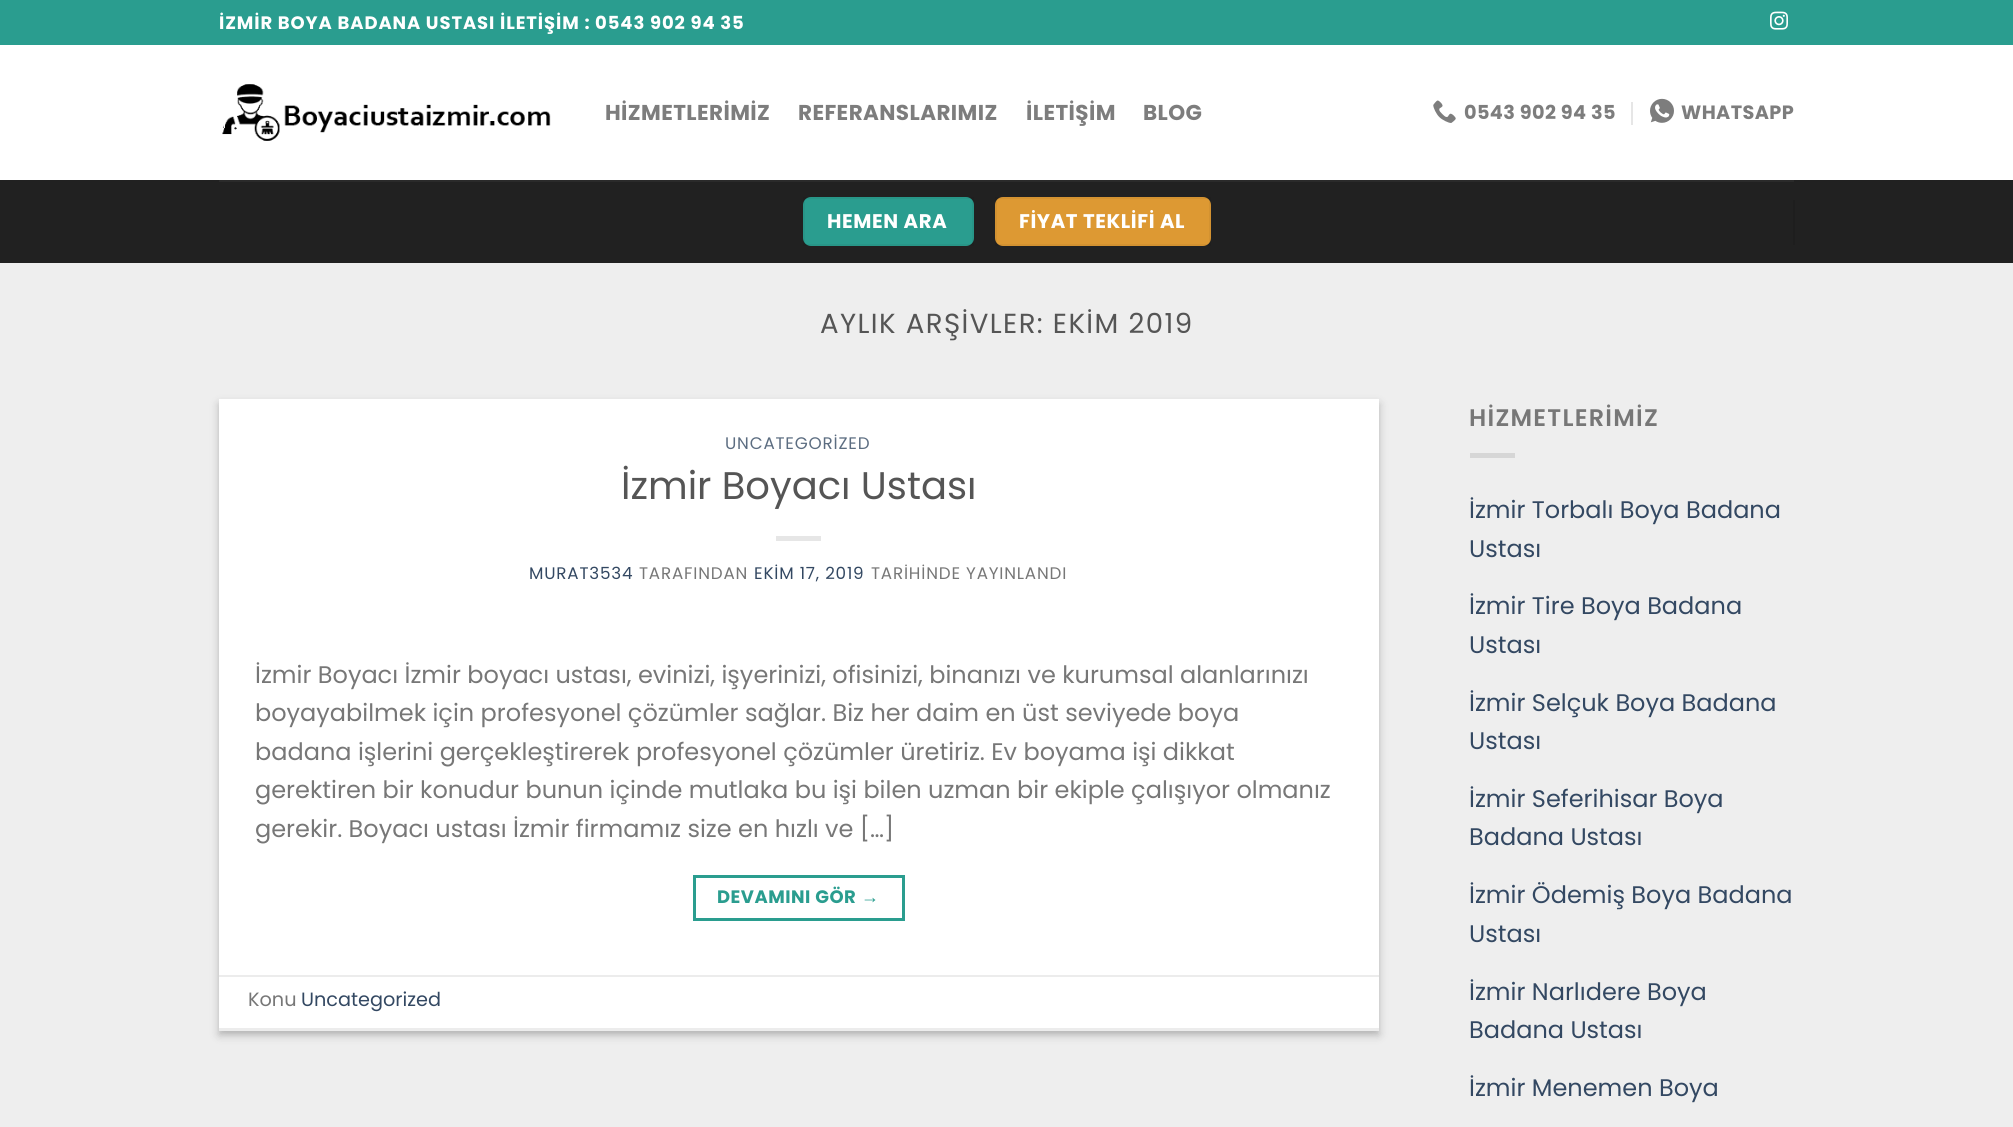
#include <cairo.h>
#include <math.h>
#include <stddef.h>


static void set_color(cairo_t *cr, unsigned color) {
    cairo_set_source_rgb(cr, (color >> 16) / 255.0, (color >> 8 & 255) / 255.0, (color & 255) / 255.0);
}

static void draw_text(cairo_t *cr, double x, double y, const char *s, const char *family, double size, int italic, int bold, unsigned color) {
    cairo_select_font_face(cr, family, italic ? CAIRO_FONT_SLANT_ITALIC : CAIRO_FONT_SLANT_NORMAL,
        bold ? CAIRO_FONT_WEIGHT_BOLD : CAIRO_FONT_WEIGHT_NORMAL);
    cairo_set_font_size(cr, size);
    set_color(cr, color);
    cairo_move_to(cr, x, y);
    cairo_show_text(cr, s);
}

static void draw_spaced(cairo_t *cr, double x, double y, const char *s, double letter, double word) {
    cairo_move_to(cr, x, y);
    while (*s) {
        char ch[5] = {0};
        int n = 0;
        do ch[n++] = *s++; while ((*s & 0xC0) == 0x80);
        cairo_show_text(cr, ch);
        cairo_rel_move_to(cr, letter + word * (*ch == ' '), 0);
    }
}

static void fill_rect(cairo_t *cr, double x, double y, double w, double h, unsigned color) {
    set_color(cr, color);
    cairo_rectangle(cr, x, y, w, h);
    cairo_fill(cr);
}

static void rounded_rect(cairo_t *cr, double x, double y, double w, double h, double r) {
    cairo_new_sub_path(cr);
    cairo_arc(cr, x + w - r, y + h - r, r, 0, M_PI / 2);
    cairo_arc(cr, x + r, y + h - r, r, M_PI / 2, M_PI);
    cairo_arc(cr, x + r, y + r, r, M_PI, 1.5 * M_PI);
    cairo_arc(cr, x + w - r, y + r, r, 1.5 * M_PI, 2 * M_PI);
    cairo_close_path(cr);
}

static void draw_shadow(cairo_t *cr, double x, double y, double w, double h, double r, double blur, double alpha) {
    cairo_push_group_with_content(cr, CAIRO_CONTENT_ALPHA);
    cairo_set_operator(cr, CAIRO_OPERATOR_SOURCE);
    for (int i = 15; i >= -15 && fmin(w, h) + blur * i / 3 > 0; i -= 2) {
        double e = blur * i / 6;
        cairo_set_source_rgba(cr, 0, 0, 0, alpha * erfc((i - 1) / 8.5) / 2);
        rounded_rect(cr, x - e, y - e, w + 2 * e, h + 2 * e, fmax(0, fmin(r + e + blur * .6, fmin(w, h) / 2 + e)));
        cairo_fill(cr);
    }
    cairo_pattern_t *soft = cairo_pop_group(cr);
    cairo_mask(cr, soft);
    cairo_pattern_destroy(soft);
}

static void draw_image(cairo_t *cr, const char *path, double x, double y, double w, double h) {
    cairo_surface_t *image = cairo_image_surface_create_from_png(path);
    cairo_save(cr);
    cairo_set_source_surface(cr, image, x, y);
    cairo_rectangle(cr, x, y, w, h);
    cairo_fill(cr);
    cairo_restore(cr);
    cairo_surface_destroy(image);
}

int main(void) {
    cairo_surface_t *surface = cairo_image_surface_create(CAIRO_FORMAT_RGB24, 2013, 1127);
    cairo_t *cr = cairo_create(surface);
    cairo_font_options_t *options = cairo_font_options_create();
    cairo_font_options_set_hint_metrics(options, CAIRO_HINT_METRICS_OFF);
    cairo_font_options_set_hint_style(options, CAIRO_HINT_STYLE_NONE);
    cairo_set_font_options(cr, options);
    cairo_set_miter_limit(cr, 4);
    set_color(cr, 0xFFFFFF);
    cairo_paint(cr);
    fill_rect(cr, 0, 0, 2013, 45, 0x2A9D8F);
    cairo_select_font_face(cr, "Poppins", CAIRO_FONT_SLANT_NORMAL, CAIRO_FONT_WEIGHT_BOLD);
    cairo_set_font_size(cr, 18);
    set_color(cr, 0xFFFFFF);
    draw_spaced(cr, 219, 29, "İZMİR BOYA BADANA USTASI İLETİŞİM : 0543 902 94 35", 0.9, 0);
    draw_image(cr, "assets/img1.png", 1770, 11, 18, 19);
    draw_image(cr, "assets/img2.png", 222, 84, 329, 57);
    cairo_set_font_size(cr, 21.5);
    set_color(cr, 0x7D7D7D);
    draw_spaced(cr, 605, 120, "HİZMETLERİMİZ", 0.4, 0);
    draw_spaced(cr, 798, 120, "REFERANSLARIMIZ", 0.4, 0);
    draw_spaced(cr, 1026, 120, "İLETİŞİM", 0.4, 0);
    draw_spaced(cr, 1143, 120, "BLOG", 0.4, 0);
    draw_image(cr, "assets/img3.png", 1433, 100, 23, 23);
    cairo_set_font_size(cr, 19.25);
    draw_spaced(cr, 1464, 119, "0543 902 94 35", 0.4, 0);
    fill_rect(cr, 1631, 102, 2, 23, 0xE6E6E6);
    draw_image(cr, "assets/img4.png", 1650, 98, 24, 25);
    set_color(cr, 0x7D7D7D);
    draw_spaced(cr, 1681, 119, "WHATSAPP", 0.4, 0);
    fill_rect(cr, 0, 180, 2013, 83, 0x212121);
    fill_rect(cr, 219, 180, 1575, 2, 0x2A2A2A);
    set_color(cr, 0x2A9D8F);
    rounded_rect(cr, 803, 197, 171, 49, 8);
    cairo_fill(cr);
    cairo_rectangle(cr, 804, 198, 169, 47);
    cairo_set_source_rgba(cr, 0, 0, 0, 0.05);
    cairo_stroke(cr);
    cairo_set_font_size(cr, 19.75);
    set_color(cr, 0xFFFFFF);
    draw_spaced(cr, 827, 228, "HEMEN ARA", 0.6, 0);
    set_color(cr, 0xDD9933);
    rounded_rect(cr, 995, 197, 216, 49, 8);
    cairo_fill(cr);
    cairo_rectangle(cr, 996, 198, 214, 47);
    cairo_set_source_rgba(cr, 0, 0, 0, 0.05);
    cairo_stroke(cr);
    set_color(cr, 0xFFFFFF);
    draw_spaced(cr, 1019, 228, "FİYAT TEKLİFİ AL", 0.6, 0);
    fill_rect(cr, 1793, 200, 2, 45, 0x1E1E1E);
    fill_rect(cr, 0, 263, 2013, 864, 0xEEEEEE);
    cairo_select_font_face(cr, "Poppins", CAIRO_FONT_SLANT_NORMAL, CAIRO_FONT_WEIGHT_NORMAL);
    cairo_set_font_size(cr, 27.6);
    set_color(cr, 0x555555);
    draw_spaced(cr, 820, 333, "AYLIK ARŞİVLER: EKİM 2019", 1.4, 0);
    set_color(cr, 0x000000);
    draw_shadow(cr, 219, 404, 1160, 631, 0, 4.5, 0.23);
    draw_shadow(cr, 225, 410, 1148, 619, 0, 4.5, 0.16);
    fill_rect(cr, 219, 399, 1160, 629, 0xFFFFFF);
    cairo_set_font_size(cr, 16.75);
    set_color(cr, 0x5C6D81);
    draw_spaced(cr, 725, 449, "UNCATEGORİZED", 0.8, 0);
    draw_text(cr, 621, 499, "İzmir Boyacı Ustası", "Poppins", 38.5, 0, 0, 0x555555);
    fill_rect(cr, 776, 536, 45, 5, 0xE6E6E6);
    cairo_set_font_size(cr, 16.75);
    set_color(cr, 0x334862);
    draw_spaced(cr, 529, 579, "MURAT3534", 0.8, 0);
    set_color(cr, 0x777777);
    draw_spaced(cr, 639, 579, "TARAFINDAN", 0.8, 0);
    set_color(cr, 0x334862);
    draw_spaced(cr, 754, 579, "EKİM 17, 2019", 0.8, 0);
    set_color(cr, 0x777777);
    draw_spaced(cr, 871, 579, "TARİHİNDE YAYINLANDI", 0.8, 0);
    draw_text(cr, 255, 683, "İzmir Boyacı İzmir boyacı ustası, evinizi, işyerinizi, ofisinizi, binanızı ve kurumsal alanlarınızı", "Poppins", 24, 0, 0, 0x777777);
    draw_text(cr, 255, 721, "boyayabilmek için profesyonel çözümler sağlar. Biz her daim en üst seviyede boya", "Poppins", 24, 0, 0, 0x777777);
    draw_text(cr, 255, 760, "badana işlerini gerçekleştirerek profesyonel çözümler üretiriz. Ev boyama işi dikkat", "Poppins", 24, 0, 0, 0x777777);
    draw_text(cr, 255, 798, "gerektiren bir konudur bunun içinde mutlaka bu işi bilen uzman bir ekiple çalışıyor olmanız", "Poppins", 24, 0, 0, 0x777777);
    draw_text(cr, 255, 837, "gerekir. Boyacı ustası İzmir firmamız size en hızlı ve […]", "Poppins", 24, 0, 0, 0x777777);
    cairo_rectangle(cr, 694.5, 876.5, 209, 43);
    set_color(cr, 0x2A9D8F);
    cairo_set_line_width(cr, 3);
    cairo_stroke(cr);
    cairo_select_font_face(cr, "Poppins", CAIRO_FONT_SLANT_NORMAL, CAIRO_FONT_WEIGHT_BOLD);
    cairo_set_font_size(cr, 18);
    draw_spaced(cr, 717, 903, "DEVAMINI GÖR", 0.5, 0);
    cairo_select_font_face(cr, "Liberation Sans", CAIRO_FONT_SLANT_NORMAL, CAIRO_FONT_WEIGHT_BOLD);
    draw_spaced(cr, 861, 903, "→", 0.5, 0);
    fill_rect(cr, 219, 975, 1160, 2, 0xECECEC);
    fill_rect(cr, 219, 1028, 1160, 3, 0xECECEC);
    draw_text(cr, 248, 1006, "Konu", "Poppins", 19.25, 0, 0, 0x777777);
    draw_text(cr, 301, 1006, "Uncategorized", "Poppins", 19.25, 0, 0, 0x334862);
    cairo_select_font_face(cr, "Poppins SemiBold", CAIRO_FONT_SLANT_NORMAL, CAIRO_FONT_WEIGHT_NORMAL);
    cairo_set_font_size(cr, 24);
    set_color(cr, 0x777777);
    draw_spaced(cr, 1469, 426, "HİZMETLERİMİZ", 1.25, 0);
    fill_rect(cr, 1470, 453, 45, 5, 0xD6D6D6);
    draw_text(cr, 1469, 518, "İzmir Torbalı Boya Badana", "Poppins", 24, 0, 0, 0x334862);
    draw_text(cr, 1469, 557, "Ustası", "Poppins", 24, 0, 0, 0x334862);
    draw_text(cr, 1469, 614, "İzmir Tire Boya Badana", "Poppins", 24, 0, 0, 0x334862);
    draw_text(cr, 1469, 653, "Ustası", "Poppins", 24, 0, 0, 0x334862);
    draw_text(cr, 1469, 711, "İzmir Selçuk Boya Badana", "Poppins", 24, 0, 0, 0x334862);
    draw_text(cr, 1469, 749, "Ustası", "Poppins", 24, 0, 0, 0x334862);
    draw_text(cr, 1469, 807, "İzmir Seferihisar Boya", "Poppins", 24, 0, 0, 0x334862);
    draw_text(cr, 1469, 845, "Badana Ustası", "Poppins", 24, 0, 0, 0x334862);
    draw_text(cr, 1469, 903, "İzmir Ödemiş Boya Badana", "Poppins", 24, 0, 0, 0x334862);
    draw_text(cr, 1469, 942, "Ustası", "Poppins", 24, 0, 0, 0x334862);
    draw_text(cr, 1469, 1000, "İzmir Narlıdere Boya", "Poppins", 24, 0, 0, 0x334862);
    draw_text(cr, 1469, 1038, "Badana Ustası", "Poppins", 24, 0, 0, 0x334862);
    draw_text(cr, 1469, 1096, "İzmir Menemen Boya", "Poppins", 24, 0, 0, 0x334862);
    cairo_surface_write_to_png(surface, "output.png");
    cairo_font_options_destroy(options);
    cairo_destroy(cr);
    cairo_surface_destroy(surface);
    return 0;
}
